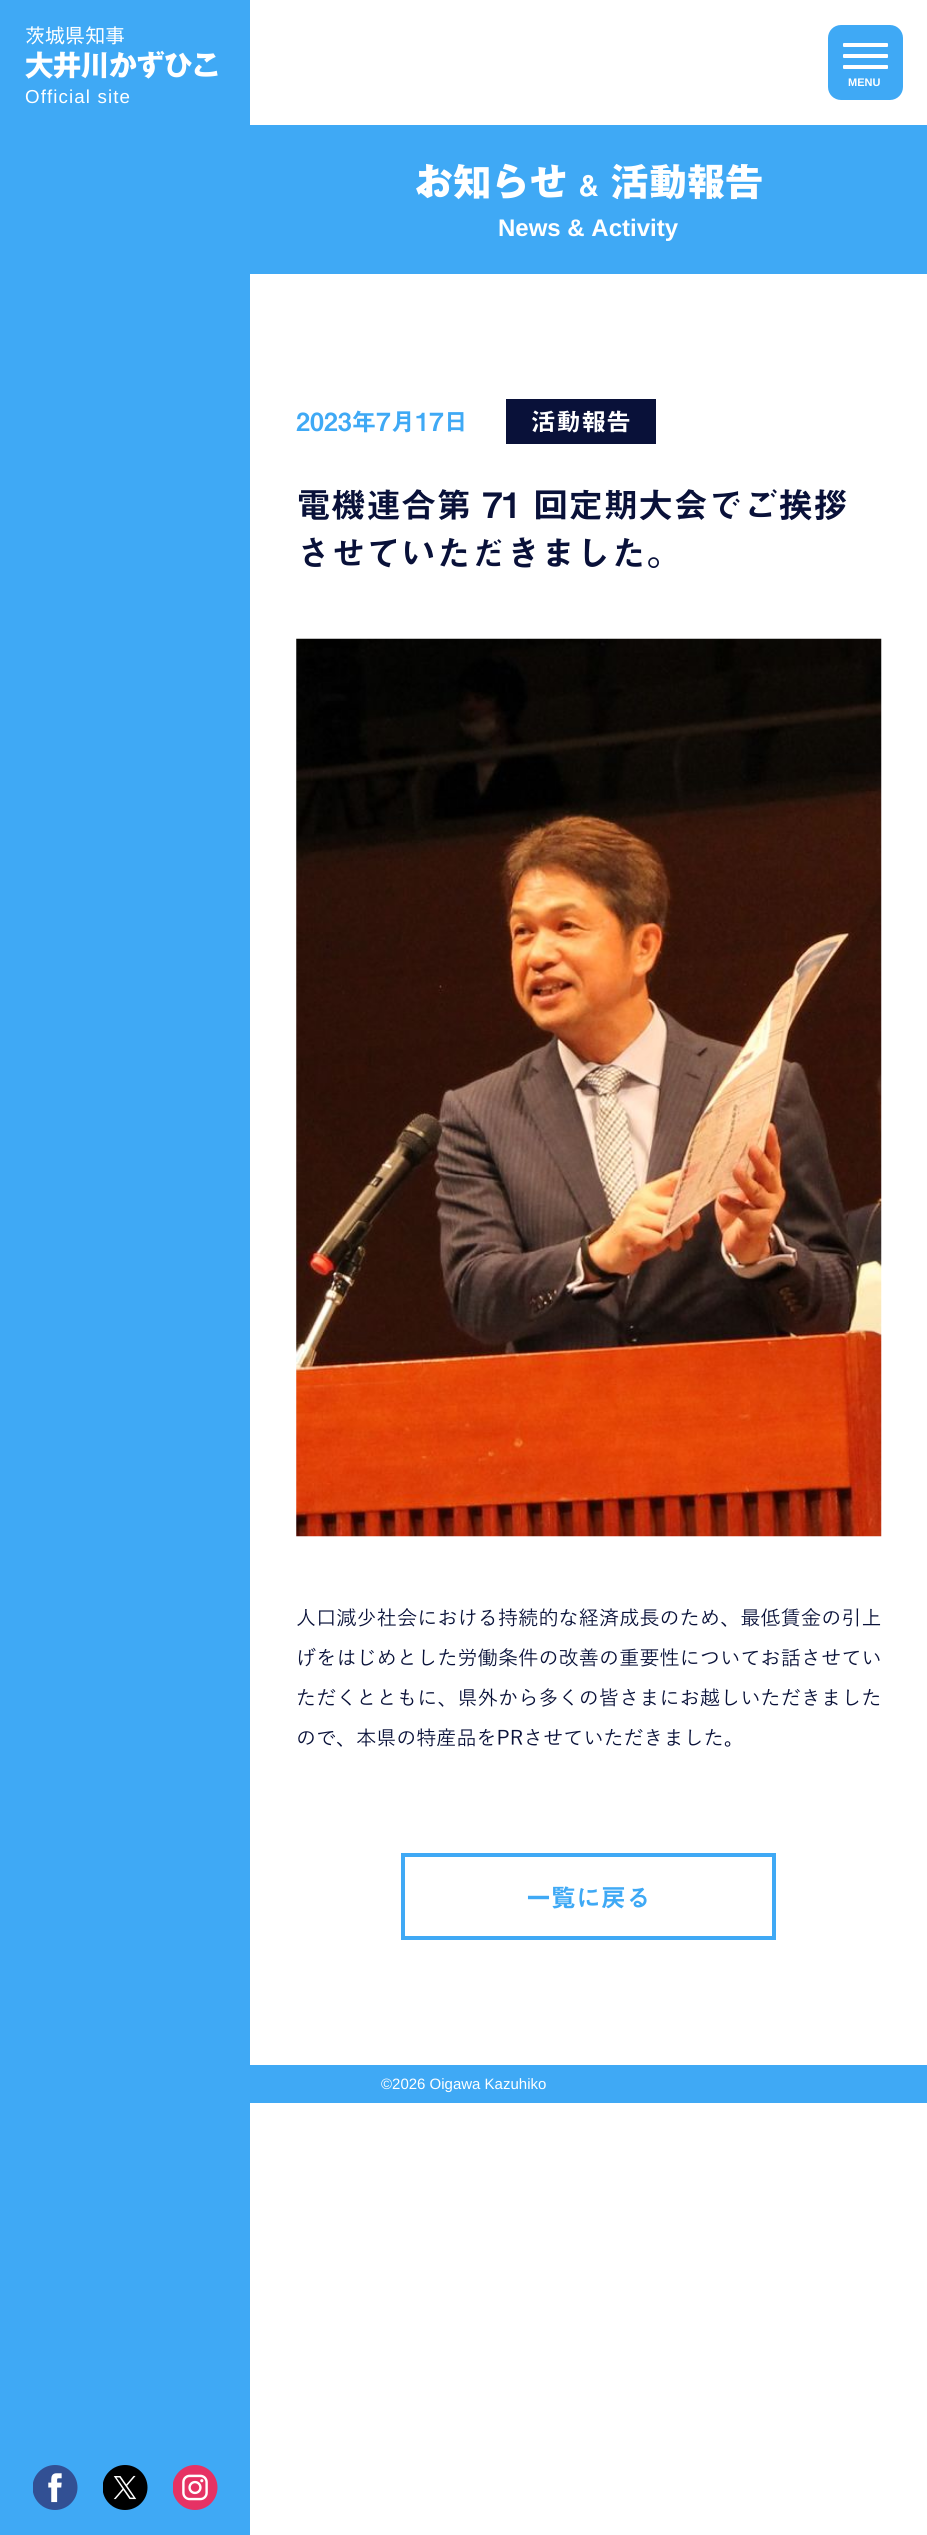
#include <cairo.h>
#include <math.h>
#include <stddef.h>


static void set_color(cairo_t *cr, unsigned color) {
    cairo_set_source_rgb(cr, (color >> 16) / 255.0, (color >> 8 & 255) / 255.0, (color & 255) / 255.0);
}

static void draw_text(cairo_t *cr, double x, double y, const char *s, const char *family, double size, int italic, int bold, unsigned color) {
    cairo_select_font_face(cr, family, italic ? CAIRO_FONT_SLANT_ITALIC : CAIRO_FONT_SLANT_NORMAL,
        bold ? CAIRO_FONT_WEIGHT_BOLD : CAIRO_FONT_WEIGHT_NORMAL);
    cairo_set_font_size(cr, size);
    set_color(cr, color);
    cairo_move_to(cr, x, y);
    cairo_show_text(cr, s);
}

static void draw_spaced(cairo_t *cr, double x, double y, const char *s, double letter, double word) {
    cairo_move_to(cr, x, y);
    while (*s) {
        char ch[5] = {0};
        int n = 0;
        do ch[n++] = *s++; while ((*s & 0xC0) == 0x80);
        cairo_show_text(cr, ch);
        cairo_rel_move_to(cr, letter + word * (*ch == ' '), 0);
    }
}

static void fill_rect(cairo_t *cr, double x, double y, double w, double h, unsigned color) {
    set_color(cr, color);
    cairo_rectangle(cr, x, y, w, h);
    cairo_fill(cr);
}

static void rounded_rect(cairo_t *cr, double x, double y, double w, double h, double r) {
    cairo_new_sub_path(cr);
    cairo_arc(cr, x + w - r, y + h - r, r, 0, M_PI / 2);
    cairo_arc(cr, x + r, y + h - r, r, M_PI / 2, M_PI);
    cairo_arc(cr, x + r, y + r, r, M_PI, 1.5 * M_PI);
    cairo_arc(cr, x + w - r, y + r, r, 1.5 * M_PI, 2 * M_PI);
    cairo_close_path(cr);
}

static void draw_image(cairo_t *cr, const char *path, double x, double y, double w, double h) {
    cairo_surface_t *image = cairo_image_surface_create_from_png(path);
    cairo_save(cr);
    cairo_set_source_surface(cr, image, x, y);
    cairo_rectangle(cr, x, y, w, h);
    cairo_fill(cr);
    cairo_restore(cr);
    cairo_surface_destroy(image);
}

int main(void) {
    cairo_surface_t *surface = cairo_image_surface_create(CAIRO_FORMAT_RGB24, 927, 2535);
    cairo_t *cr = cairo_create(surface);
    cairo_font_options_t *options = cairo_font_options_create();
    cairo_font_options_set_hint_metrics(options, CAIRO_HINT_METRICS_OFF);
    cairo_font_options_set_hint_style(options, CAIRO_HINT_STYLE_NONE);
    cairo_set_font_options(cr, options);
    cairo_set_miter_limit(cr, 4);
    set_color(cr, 0xFFFFFF);
    cairo_paint(cr);
    fill_rect(cr, 0, 0, 250, 2535, 0x3FA9F5);
    draw_text(cr, 25, 43, "茨城県知事", "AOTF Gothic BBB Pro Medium", 20, 0, 0, 0xFFFFFF);
    cairo_select_font_face(cr, "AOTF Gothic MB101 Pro", CAIRO_FONT_SLANT_NORMAL, CAIRO_FONT_WEIGHT_BOLD);
    cairo_set_font_size(cr, 28.75);
    draw_spaced(cr, 25, 76, "大井川かずひこ", -1, 0);
    cairo_select_font_face(cr, "Liberation Sans", CAIRO_FONT_SLANT_NORMAL, CAIRO_FONT_WEIGHT_NORMAL);
    cairo_set_font_size(cr, 18.75);
    draw_spaced(cr, 25, 103, "Official site", 1.1, 0);
    draw_image(cr, "assets/img1.png", 33, 2465, 45, 45);
    draw_image(cr, "assets/img2.png", 103, 2465, 45, 45);
    draw_image(cr, "assets/img3.png", 173, 2465, 45, 45);
    set_color(cr, 0x3FA9F5);
    rounded_rect(cr, 828, 25, 75, 75, 13);
    cairo_fill(cr);
    set_color(cr, 0xFFFFFF);
    rounded_rect(cr, 843, 54, 45, 4, 1);
    cairo_fill(cr);
    rounded_rect(cr, 843, 43, 45, 4, 1);
    cairo_fill(cr);
    rounded_rect(cr, 843, 65, 45, 4, 1);
    cairo_fill(cr);
    draw_text(cr, 848, 86, "MENU", "Liberation Sans", 11, 0, 1, 0xFFFFFF);
    fill_rect(cr, 250, 125, 677, 149, 0x3FA9F5);
    draw_text(cr, 415, 196, "お知らせ", "AOTF Gothic MB101 Pro", 38, 0, 1, 0xFFFFFF);
    draw_text(cr, 579, 196, "&", "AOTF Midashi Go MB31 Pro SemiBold", 28, 0, 0, 0xFFFFFF);
    draw_text(cr, 611, 196, "活動報告", "AOTF Gothic MB101 Pro", 38, 0, 1, 0xFFFFFF);
    draw_text(cr, 498, 236, "News & Activity", "Liberation Sans", 24, 0, 1, 0xFFFFFF);
    draw_text(cr, 296, 431, "2023年7月17日", "AOTF Midashi Go MB31 Pro SemiBold", 25, 0, 0, 0x3FA9F5);
    fill_rect(cr, 506, 399, 150, 45, 0x091139);
    draw_text(cr, 531, 431, "活動報告", "AOTF Midashi Go MB31 Pro SemiBold", 25, 0, 0, 0xFFFFFF);
    draw_text(cr, 296, 518, "電機連合第 71 回定期大会でご挨拶", "AOTF Midashi Go MB31 Pro SemiBold", 35, 0, 0, 0x091139);
    draw_text(cr, 296, 566, "させていただきました。", "AOTF Midashi Go MB31 Pro SemiBold", 35, 0, 0, 0x091139);
    draw_image(cr, "assets/img4.png", 296, 638, 586, 899);
    cairo_select_font_face(cr, "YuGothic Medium", CAIRO_FONT_SLANT_NORMAL, CAIRO_FONT_WEIGHT_NORMAL);
    cairo_set_font_size(cr, 20);
    draw_spaced(cr, 296, 1625, "人口減少社会における持続的な経済成長のため、最低賃金の引上", 0.2, 0);
    draw_spaced(cr, 296, 1665, "げをはじめとした労働条件の改善の重要性についてお話させてい", 0.2, 0);
    draw_spaced(cr, 296, 1705, "ただくとともに、県外から多くの皆さまにお越しいただきました", 0.2, 0);
    draw_spaced(cr, 296, 1745, "ので、本県の特産品をPRさせていただきました。", 0.05, 0);
    cairo_rectangle(cr, 403, 1855, 371, 83);
    set_color(cr, 0x3FA9F5);
    cairo_set_line_width(cr, 4);
    cairo_stroke(cr);
    draw_text(cr, 526, 1907, "一覧に戻る", "AOTF Midashi Go MB31 Pro SemiBold", 25, 0, 0, 0x3FA9F5);
    fill_rect(cr, 250, 2065, 677, 38, 0x3FA9F5);
    draw_text(cr, 381, 2089, "©2026 Oigawa Kazuhiko", "Liberation Sans", 15, 0, 0, 0xFFFFFF);
    cairo_surface_write_to_png(surface, "output.png");
    cairo_font_options_destroy(options);
    cairo_destroy(cr);
    cairo_surface_destroy(surface);
    return 0;
}
